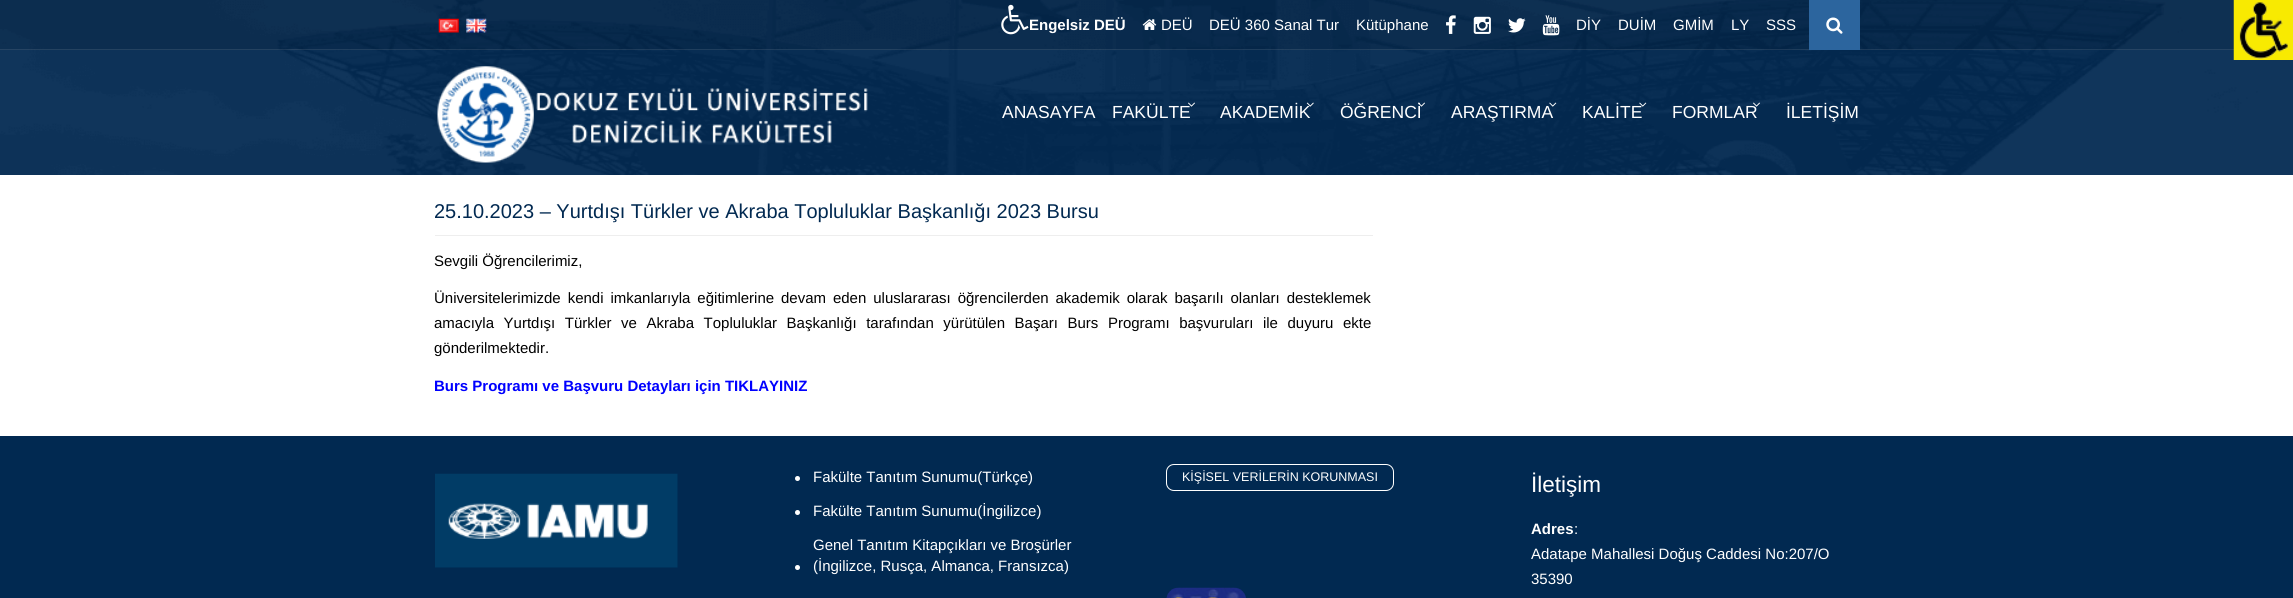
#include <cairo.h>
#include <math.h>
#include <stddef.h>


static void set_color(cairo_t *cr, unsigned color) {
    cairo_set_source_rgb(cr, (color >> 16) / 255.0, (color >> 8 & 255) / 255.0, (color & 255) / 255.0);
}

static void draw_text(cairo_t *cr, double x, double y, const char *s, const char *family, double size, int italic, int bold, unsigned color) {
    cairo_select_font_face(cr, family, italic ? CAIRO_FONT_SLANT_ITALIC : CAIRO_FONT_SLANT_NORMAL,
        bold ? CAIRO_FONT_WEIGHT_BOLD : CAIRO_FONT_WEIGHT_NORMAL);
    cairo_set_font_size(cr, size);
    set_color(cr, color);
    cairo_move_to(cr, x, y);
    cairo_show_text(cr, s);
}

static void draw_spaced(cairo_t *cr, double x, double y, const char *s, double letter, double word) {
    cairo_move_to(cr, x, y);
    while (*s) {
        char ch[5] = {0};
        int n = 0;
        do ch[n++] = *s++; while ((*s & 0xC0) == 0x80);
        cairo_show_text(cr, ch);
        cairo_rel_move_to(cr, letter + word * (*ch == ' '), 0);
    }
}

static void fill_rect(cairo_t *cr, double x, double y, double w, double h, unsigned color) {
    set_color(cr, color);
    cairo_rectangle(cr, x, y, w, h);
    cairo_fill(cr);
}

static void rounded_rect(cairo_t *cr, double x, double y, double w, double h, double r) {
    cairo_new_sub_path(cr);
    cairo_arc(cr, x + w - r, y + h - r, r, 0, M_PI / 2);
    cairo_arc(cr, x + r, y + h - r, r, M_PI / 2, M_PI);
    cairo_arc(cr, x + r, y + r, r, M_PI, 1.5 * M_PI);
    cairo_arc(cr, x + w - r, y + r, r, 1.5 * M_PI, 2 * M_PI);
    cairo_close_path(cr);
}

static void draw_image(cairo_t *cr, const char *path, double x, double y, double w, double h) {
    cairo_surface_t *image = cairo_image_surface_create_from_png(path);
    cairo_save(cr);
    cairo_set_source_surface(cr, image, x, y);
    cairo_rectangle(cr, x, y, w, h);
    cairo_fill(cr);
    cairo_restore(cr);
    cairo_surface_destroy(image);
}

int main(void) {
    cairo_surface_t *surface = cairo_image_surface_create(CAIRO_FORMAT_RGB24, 2293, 598);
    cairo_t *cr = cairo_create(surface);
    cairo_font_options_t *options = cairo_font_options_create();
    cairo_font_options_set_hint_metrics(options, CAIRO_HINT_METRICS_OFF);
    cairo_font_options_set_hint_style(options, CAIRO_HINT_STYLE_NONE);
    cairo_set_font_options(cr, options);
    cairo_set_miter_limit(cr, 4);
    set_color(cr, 0xFFFFFF);
    cairo_paint(cr);
    fill_rect(cr, 0, 0, 2293, 175, 0x012951);
    draw_image(cr, "assets/img1.png", 0, 0, 2293, 175);
    cairo_set_source_rgba(cr, 0, 0, 0, 0.1);
    cairo_rectangle(cr, 0, 0, 2234, 50);
    cairo_fill(cr);
    cairo_set_source_rgba(cr, 1, 1, 1, 0.1);
    cairo_rectangle(cr, 0, 49, 2234, 1);
    cairo_fill(cr);
    draw_image(cr, "assets/img2.png", 438, 18, 21, 15);
    draw_image(cr, "assets/img3.png", 466, 18, 21, 15);
    draw_image(cr, "assets/img4.png", 1001, 4, 28, 31);
    draw_text(cr, 1029, 30, "Engelsiz DEÜ", "Liberation Sans", 15, 0, 1, 0xFFFFFF);
    draw_image(cr, "assets/img5.png", 1142, 19, 15, 11);
    draw_text(cr, 1161, 30, "DEÜ", "Liberation Sans", 15, 0, 0, 0xFFFFFF);
    draw_text(cr, 1209, 30, "DEÜ 360 Sanal Tur", "Liberation Sans", 15, 0, 0, 0xFFFFFF);
    draw_text(cr, 1356, 30, "Kütüphane", "Liberation Sans", 15, 0, 0, 0xFFFFFF);
    draw_image(cr, "assets/img6.png", 1446, 15, 10, 19);
    draw_image(cr, "assets/img7.png", 1473, 16, 18, 18);
    draw_image(cr, "assets/img8.png", 1508, 18, 18, 15);
    draw_image(cr, "assets/img9.png", 1542, 15, 18, 21);
    draw_text(cr, 1576, 30, "DİY", "Liberation Sans", 15, 0, 0, 0xFFFFFF);
    draw_text(cr, 1618, 30, "DUİM", "Liberation Sans", 15, 0, 0, 0xFFFFFF);
    draw_text(cr, 1673, 30, "GMİM", "Liberation Sans", 15, 0, 0, 0xFFFFFF);
    draw_text(cr, 1731, 30, "LY", "Liberation Sans", 15, 0, 0, 0xFFFFFF);
    draw_text(cr, 1766, 30, "SSS", "Liberation Sans", 15, 0, 0, 0xFFFFFF);
    fill_rect(cr, 1809, 0, 51, 50, 0x2C659E);
    draw_image(cr, "assets/img10.png", 1826, 17, 17, 17);
    draw_image(cr, "assets/img11.png", 437, 66, 431, 97);
    draw_text(cr, 1002, 118, "ANASAYFA", "Liberation Sans", 17.5, 0, 0, 0xFFFFFF);
    draw_text(cr, 1112, 118, "FAKÜLTE", "Liberation Sans", 17.5, 0, 0, 0xFFFFFF);
    draw_image(cr, "assets/img12.png", 1188, 102, 7, 5);
    draw_text(cr, 1220, 118, "AKADEMİK", "Liberation Sans", 17.5, 0, 0, 0xFFFFFF);
    draw_image(cr, "assets/img13.png", 1306, 102, 8, 5);
    draw_text(cr, 1340, 118, "ÖĞRENCİ", "Liberation Sans", 17.5, 0, 0, 0xFFFFFF);
    draw_image(cr, "assets/img14.png", 1418, 102, 7, 5);
    draw_text(cr, 1451, 118, "ARAŞTIRMA", "Liberation Sans", 17.5, 0, 0, 0xFFFFFF);
    draw_image(cr, "assets/img15.png", 1549, 102, 8, 5);
    draw_text(cr, 1582, 118, "KALİTE", "Liberation Sans", 17.5, 0, 0, 0xFFFFFF);
    draw_image(cr, "assets/img16.png", 1639, 102, 8, 5);
    draw_text(cr, 1672, 118, "FORMLAR", "Liberation Sans", 17.5, 0, 0, 0xFFFFFF);
    draw_image(cr, "assets/img17.png", 1753, 102, 7, 5);
    draw_text(cr, 1786, 118, "İLETİŞİM", "Liberation Sans", 17.5, 0, 0, 0xFFFFFF);
    draw_text(cr, 434, 218, "25.10.2023 – Yurtdışı Türkler ve Akraba Topluluklar Başkanlığı 2023 Bursu", "Liberation Sans", 20, 0, 0, 0x012951);
    fill_rect(cr, 435, 235, 938, 1, 0xEEEEEE);
    draw_text(cr, 434, 266, "Sevgili Öğrencilerimiz,", "Liberation Sans", 15, 0, 0, 0x000000);
    draw_spaced(cr, 434, 303, "Üniversitelerimizde kendi imkanlarıyla eğitimlerine devam eden uluslararası öğrencilerden akademik olarak başarılı olanları desteklemek", 0, 2.75);
    draw_spaced(cr, 434, 328, "amacıyla Yurtdışı Türkler ve Akraba Topluluklar Başkanlığı tarafından yürütülen Başarı Burs Programı başvuruları ile duyuru ekte", 0, 5.4);
    draw_text(cr, 434, 353, "gönderilmektedir.", "Liberation Sans", 15, 0, 0, 0x000000);
    draw_text(cr, 434, 391, "Burs Programı ve Başvuru Detayları için TIKLAYINIZ", "Liberation Sans", 15, 0, 1, 0x0000FF);
    fill_rect(cr, 0, 436, 2293, 162, 0x012951);
    draw_image(cr, "assets/img18.png", 435, 473, 243, 95);
    set_color(cr, 0xFFFFFF);
    cairo_arc(cr, 797.5, 478.5, 2.5, 0, 2 * M_PI);
    cairo_fill(cr);
    draw_text(cr, 813, 482, "Fakülte Tanıtım Sunumu(Türkçe)", "Liberation Sans", 15, 0, 0, 0xFFFFFF);
    cairo_new_path(cr);
    cairo_arc(cr, 797.5, 512.5, 2.5, 0, 2 * M_PI);
    cairo_fill(cr);
    draw_text(cr, 813, 516, "Fakülte Tanıtım Sunumu(İngilizce)", "Liberation Sans", 15, 0, 0, 0xFFFFFF);
    cairo_new_path(cr);
    cairo_arc(cr, 797.5, 567.5, 2.5, 0, 2 * M_PI);
    cairo_fill(cr);
    draw_text(cr, 813, 550, "Genel Tanıtım Kitapçıkları ve Broşürler", "Liberation Sans", 15, 0, 0, 0xFFFFFF);
    draw_text(cr, 813, 571, "(İngilizce, Rusça, Almanca, Fransızca)", "Liberation Sans", 15, 0, 0, 0xFFFFFF);
    rounded_rect(cr, 1166.5, 464.5, 227, 26, 7.5);
    cairo_set_line_width(cr, 1);
    cairo_stroke(cr);
    draw_text(cr, 1182, 481, "KİŞİSEL VERİLERİN KORUNMASI", "Liberation Sans", 12.5, 0, 0, 0xFFFFFF);
    draw_image(cr, "assets/img19.png", 1166, 587, 80, 11);
    draw_text(cr, 1531, 492, "İletişim", "Liberation Sans", 22.5, 0, 0, 0xFFFFFF);
    draw_text(cr, 1531, 534, "Adres", "Liberation Sans", 15, 0, 1, 0xFFFFFF);
    draw_text(cr, 1574, 534, ":", "Liberation Sans", 15, 0, 0, 0xFFFFFF);
    draw_text(cr, 1531, 559, "Adatape Mahallesi Doğuş Caddesi No:207/O", "Liberation Sans", 15, 0, 0, 0xFFFFFF);
    draw_text(cr, 1531, 584, "35390", "Liberation Sans", 15, 0, 0, 0xFFFFFF);
    draw_image(cr, "assets/img20.png", 2233, 0, 60, 60);
    cairo_surface_write_to_png(surface, "output.png");
    cairo_font_options_destroy(options);
    cairo_destroy(cr);
    cairo_surface_destroy(surface);
    return 0;
}
